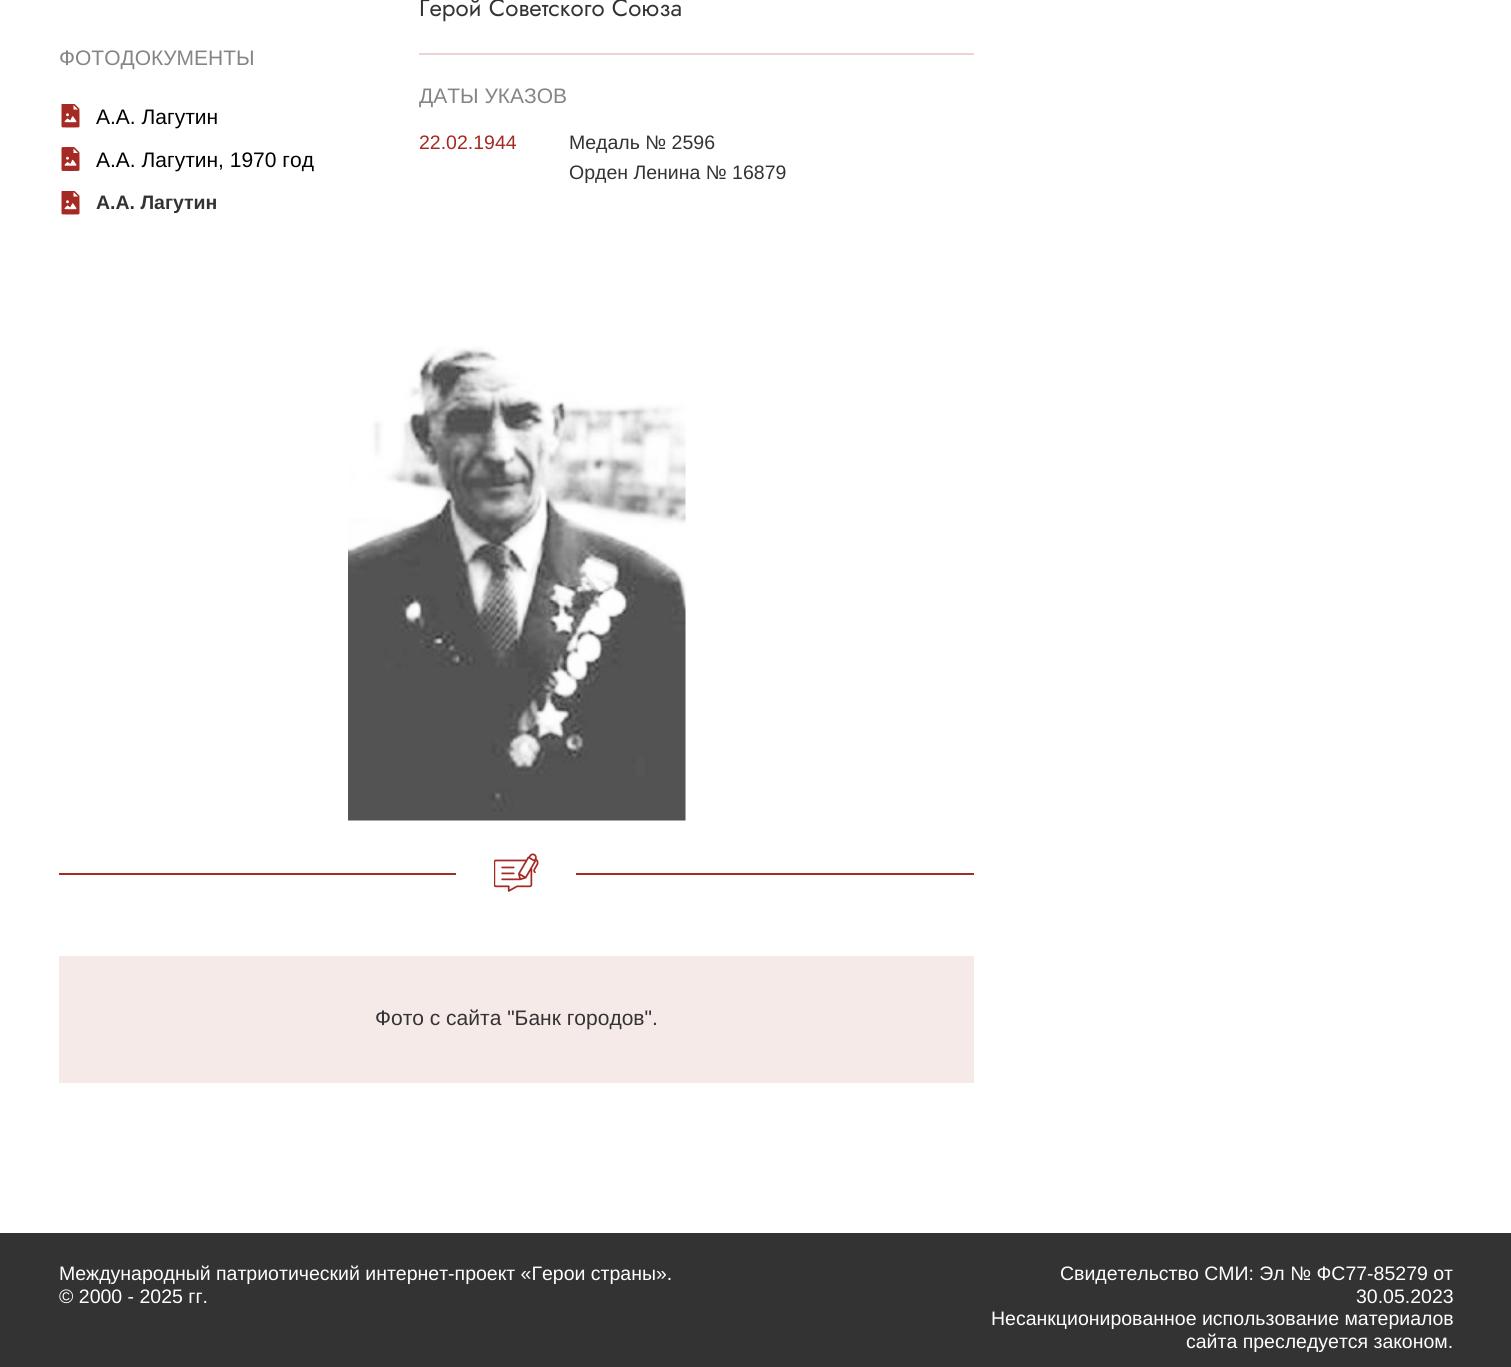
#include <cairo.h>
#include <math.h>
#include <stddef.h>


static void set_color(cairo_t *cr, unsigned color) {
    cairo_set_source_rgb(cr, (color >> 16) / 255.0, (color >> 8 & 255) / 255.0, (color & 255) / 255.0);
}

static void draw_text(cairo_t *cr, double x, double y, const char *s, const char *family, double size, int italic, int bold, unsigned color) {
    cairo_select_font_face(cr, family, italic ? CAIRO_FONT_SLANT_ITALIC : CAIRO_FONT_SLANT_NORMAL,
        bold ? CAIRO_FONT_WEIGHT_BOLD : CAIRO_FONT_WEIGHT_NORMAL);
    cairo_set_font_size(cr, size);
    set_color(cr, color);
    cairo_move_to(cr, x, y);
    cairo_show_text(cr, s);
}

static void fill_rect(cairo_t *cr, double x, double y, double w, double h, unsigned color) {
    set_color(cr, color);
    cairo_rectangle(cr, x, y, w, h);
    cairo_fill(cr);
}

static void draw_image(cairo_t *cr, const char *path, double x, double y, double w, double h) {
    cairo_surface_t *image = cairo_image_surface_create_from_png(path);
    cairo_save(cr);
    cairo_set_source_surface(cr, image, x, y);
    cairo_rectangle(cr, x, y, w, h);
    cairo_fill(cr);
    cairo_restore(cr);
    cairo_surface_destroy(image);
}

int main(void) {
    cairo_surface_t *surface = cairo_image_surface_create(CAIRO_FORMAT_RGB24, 1511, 1367);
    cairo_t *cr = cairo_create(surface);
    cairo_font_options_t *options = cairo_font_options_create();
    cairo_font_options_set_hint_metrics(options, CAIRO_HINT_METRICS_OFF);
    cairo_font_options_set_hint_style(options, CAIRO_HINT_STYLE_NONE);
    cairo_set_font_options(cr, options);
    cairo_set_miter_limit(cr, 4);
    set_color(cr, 0xFFFFFF);
    cairo_paint(cr);
    draw_text(cr, 59, 65, "ФОТОДОКУМЕНТЫ", "Liberation Sans", 21, 0, 0, 0x858585);
    draw_image(cr, "assets/img1.png", 61, 104, 19, 24);
    draw_text(cr, 96, 124, "А.А. Лагутин", "Liberation Sans", 21, 0, 0, 0x000000);
    draw_image(cr, "assets/img2.png", 61, 147, 19, 24);
    draw_text(cr, 96, 167, "А.А. Лагутин, 1970 год", "Liberation Sans", 21, 0, 0, 0x000000);
    draw_image(cr, "assets/img1.png", 61, 191, 19, 24);
    draw_text(cr, 96, 209, "А.А. Лагутин", "Liberation Sans", 19.5, 0, 1, 0x333333);
    fill_rect(cr, 419, 53, 555, 2, 0xEDD4D3);
    draw_text(cr, 419, 16, "Герой Советского Союза", "Jost", 24, 0, 0, 0x333333);
    draw_text(cr, 419, 103, "ДАТЫ УКАЗОВ", "Liberation Sans", 21, 0, 0, 0x858585);
    draw_text(cr, 419, 149, "22.02.1944", "Liberation Sans", 19.5, 0, 0, 0xA52A23);
    draw_text(cr, 569, 149, "Медаль № 2596", "Liberation Sans", 19.5, 0, 0, 0x333333);
    draw_text(cr, 569, 179, "Орден Ленина № 16879", "Liberation Sans", 19.5, 0, 0, 0x333333);
    draw_image(cr, "assets/img3.png", 348, 346, 338, 475);
    draw_image(cr, "assets/img4.png", 59, 853, 915, 39);
    fill_rect(cr, 59, 956, 915, 127, 0xF6EAE9);
    draw_text(cr, 375, 1025, "Фото с сайта \"Банк городов\".", "Liberation Sans", 21, 0, 0, 0x333333);
    fill_rect(cr, 0, 1233, 1511, 134, 0x333333);
    draw_text(cr, 59, 1280, "Международный патриотический интернет-проект «Герои страны».", "Liberation Sans", 19.5, 0, 0, 0xFFFFFF);
    draw_text(cr, 59, 1303, "© 2000 - 2025 гг.", "Liberation Sans", 19.5, 0, 0, 0xFFFFFF);
    draw_text(cr, 1060, 1280, "Свидетельство СМИ: Эл № ФС77-85279 от", "Liberation Sans", 19.5, 0, 0, 0xFFFFFF);
    draw_text(cr, 1356, 1303, "30.05.2023", "Liberation Sans", 19.5, 0, 0, 0xFFFFFF);
    draw_text(cr, 991, 1325, "Несанкционированное использование материалов", "Liberation Sans", 19.5, 0, 0, 0xFFFFFF);
    draw_text(cr, 1186, 1348, "сайта преследуется законом.", "Liberation Sans", 19.5, 0, 0, 0xFFFFFF);
    cairo_surface_write_to_png(surface, "output.png");
    cairo_font_options_destroy(options);
    cairo_destroy(cr);
    cairo_surface_destroy(surface);
    return 0;
}
